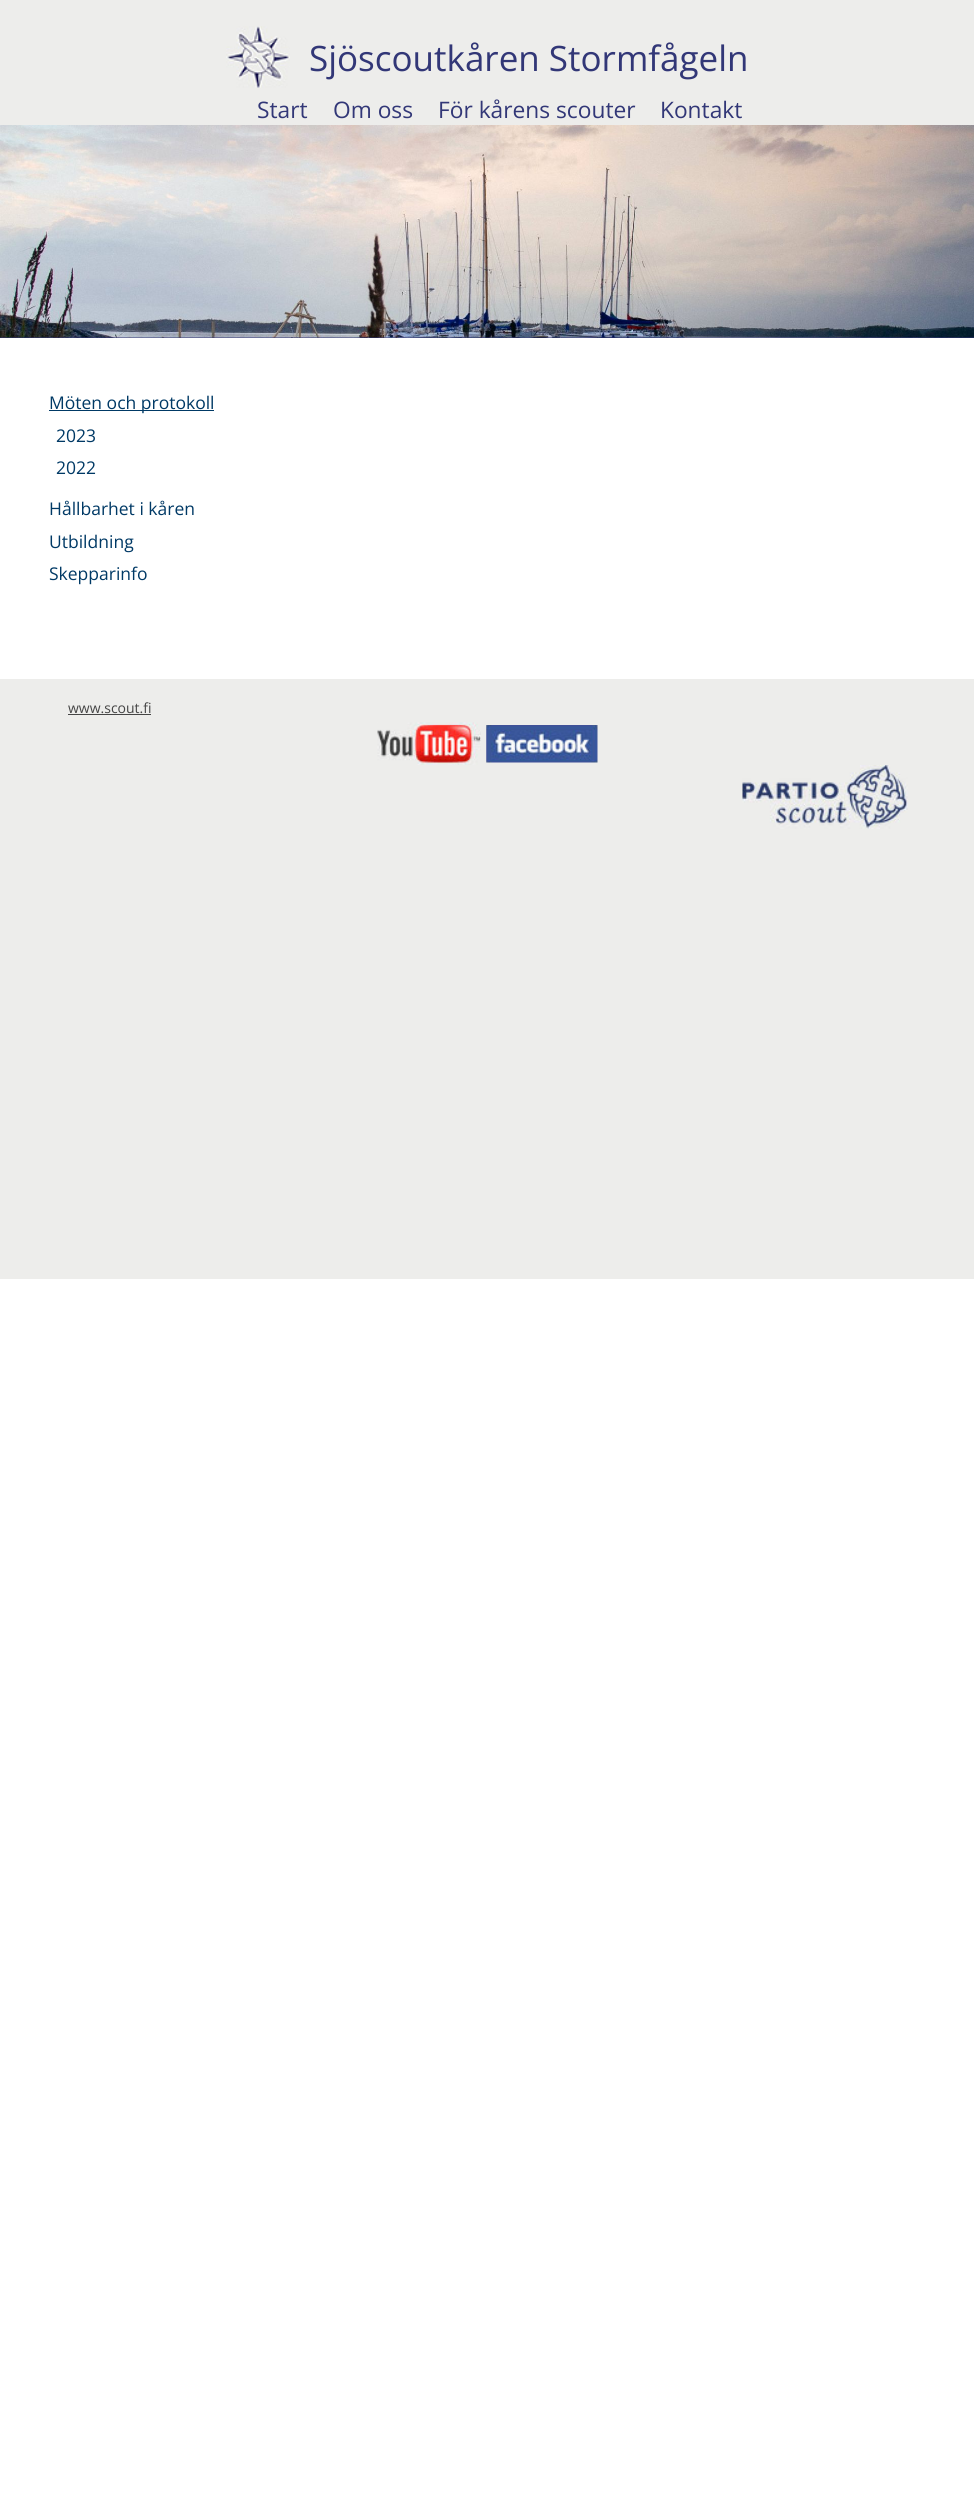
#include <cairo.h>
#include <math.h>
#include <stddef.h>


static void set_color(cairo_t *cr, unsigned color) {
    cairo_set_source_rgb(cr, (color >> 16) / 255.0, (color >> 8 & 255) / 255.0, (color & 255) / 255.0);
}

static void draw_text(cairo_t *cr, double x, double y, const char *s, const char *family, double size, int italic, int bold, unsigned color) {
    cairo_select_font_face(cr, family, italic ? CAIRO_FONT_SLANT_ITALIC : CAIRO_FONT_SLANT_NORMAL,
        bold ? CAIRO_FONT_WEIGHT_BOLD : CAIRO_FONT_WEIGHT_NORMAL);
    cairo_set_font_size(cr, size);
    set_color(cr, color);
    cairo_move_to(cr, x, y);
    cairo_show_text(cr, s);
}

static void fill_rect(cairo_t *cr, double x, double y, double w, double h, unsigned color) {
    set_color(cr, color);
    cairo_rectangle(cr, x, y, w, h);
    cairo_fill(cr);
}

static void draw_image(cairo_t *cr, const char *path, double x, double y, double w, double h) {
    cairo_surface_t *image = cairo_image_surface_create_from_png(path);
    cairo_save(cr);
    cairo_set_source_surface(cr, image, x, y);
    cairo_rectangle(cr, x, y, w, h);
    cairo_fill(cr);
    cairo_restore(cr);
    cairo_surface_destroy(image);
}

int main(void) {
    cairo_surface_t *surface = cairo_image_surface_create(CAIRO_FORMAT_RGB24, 974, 2517);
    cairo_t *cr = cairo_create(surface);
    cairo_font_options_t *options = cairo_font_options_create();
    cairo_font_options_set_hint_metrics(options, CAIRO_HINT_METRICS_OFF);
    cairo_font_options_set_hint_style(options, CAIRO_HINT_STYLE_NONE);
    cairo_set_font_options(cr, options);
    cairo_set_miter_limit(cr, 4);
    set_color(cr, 0xFFFFFF);
    cairo_paint(cr);
    fill_rect(cr, 0, 0, 974, 125, 0xEDEDEB);
    draw_image(cr, "assets/img1.png", 226, 26, 64, 62);
    draw_text(cr, 309, 71, "Sjöscoutkåren Stormfågeln", "Open Sans", 35, 0, 0, 0x323777);
    draw_text(cr, 257, 118, "Start", "Open Sans", 22.75, 0, 0, 0x323777);
    draw_text(cr, 333, 118, "Om oss", "Open Sans", 22.75, 0, 0, 0x323777);
    draw_text(cr, 438, 118, "För kårens scouter", "Open Sans", 22.75, 0, 0, 0x323777);
    draw_text(cr, 660, 118, "Kontakt", "Open Sans", 22.75, 0, 0, 0x323777);
    fill_rect(cr, 0, 337, 974, 1, 0x323777);
    draw_image(cr, "assets/img2.png", 0, 125, 974, 213);
    fill_rect(cr, 49, 410, 165, 1, 0x003965);
    draw_text(cr, 49, 409, "Möten och protokoll", "Open Sans", 17.5, 0, 0, 0x003965);
    draw_text(cr, 56, 442, "2023", "Open Sans", 17.5, 0, 0, 0x003965);
    draw_text(cr, 56, 474, "2022", "Open Sans", 17.5, 0, 0, 0x003965);
    draw_text(cr, 49, 515, "Hållbarhet i kåren", "Open Sans", 17.5, 0, 0, 0x003965);
    draw_text(cr, 49, 548, "Utbildning", "Open Sans", 17.5, 0, 0, 0x003965);
    draw_text(cr, 49, 580, "Skepparinfo", "Open Sans", 17.5, 0, 0, 0x003965);
    fill_rect(cr, 0, 679, 974, 600, 0xEDEDEB);
    draw_text(cr, 68, 713, "www.scout.fi", "Open Sans", 14, 0, 0, 0x454545);
    fill_rect(cr, 68, 714, 83, 1, 0x454545);
    draw_image(cr, "assets/img3.png", 377, 722, 104, 43);
    draw_image(cr, "assets/img4.png", 486, 725, 112, 38);
    draw_image(cr, "assets/img5.png", 742, 765, 166, 64);
    cairo_surface_write_to_png(surface, "output.png");
    cairo_font_options_destroy(options);
    cairo_destroy(cr);
    cairo_surface_destroy(surface);
    return 0;
}
